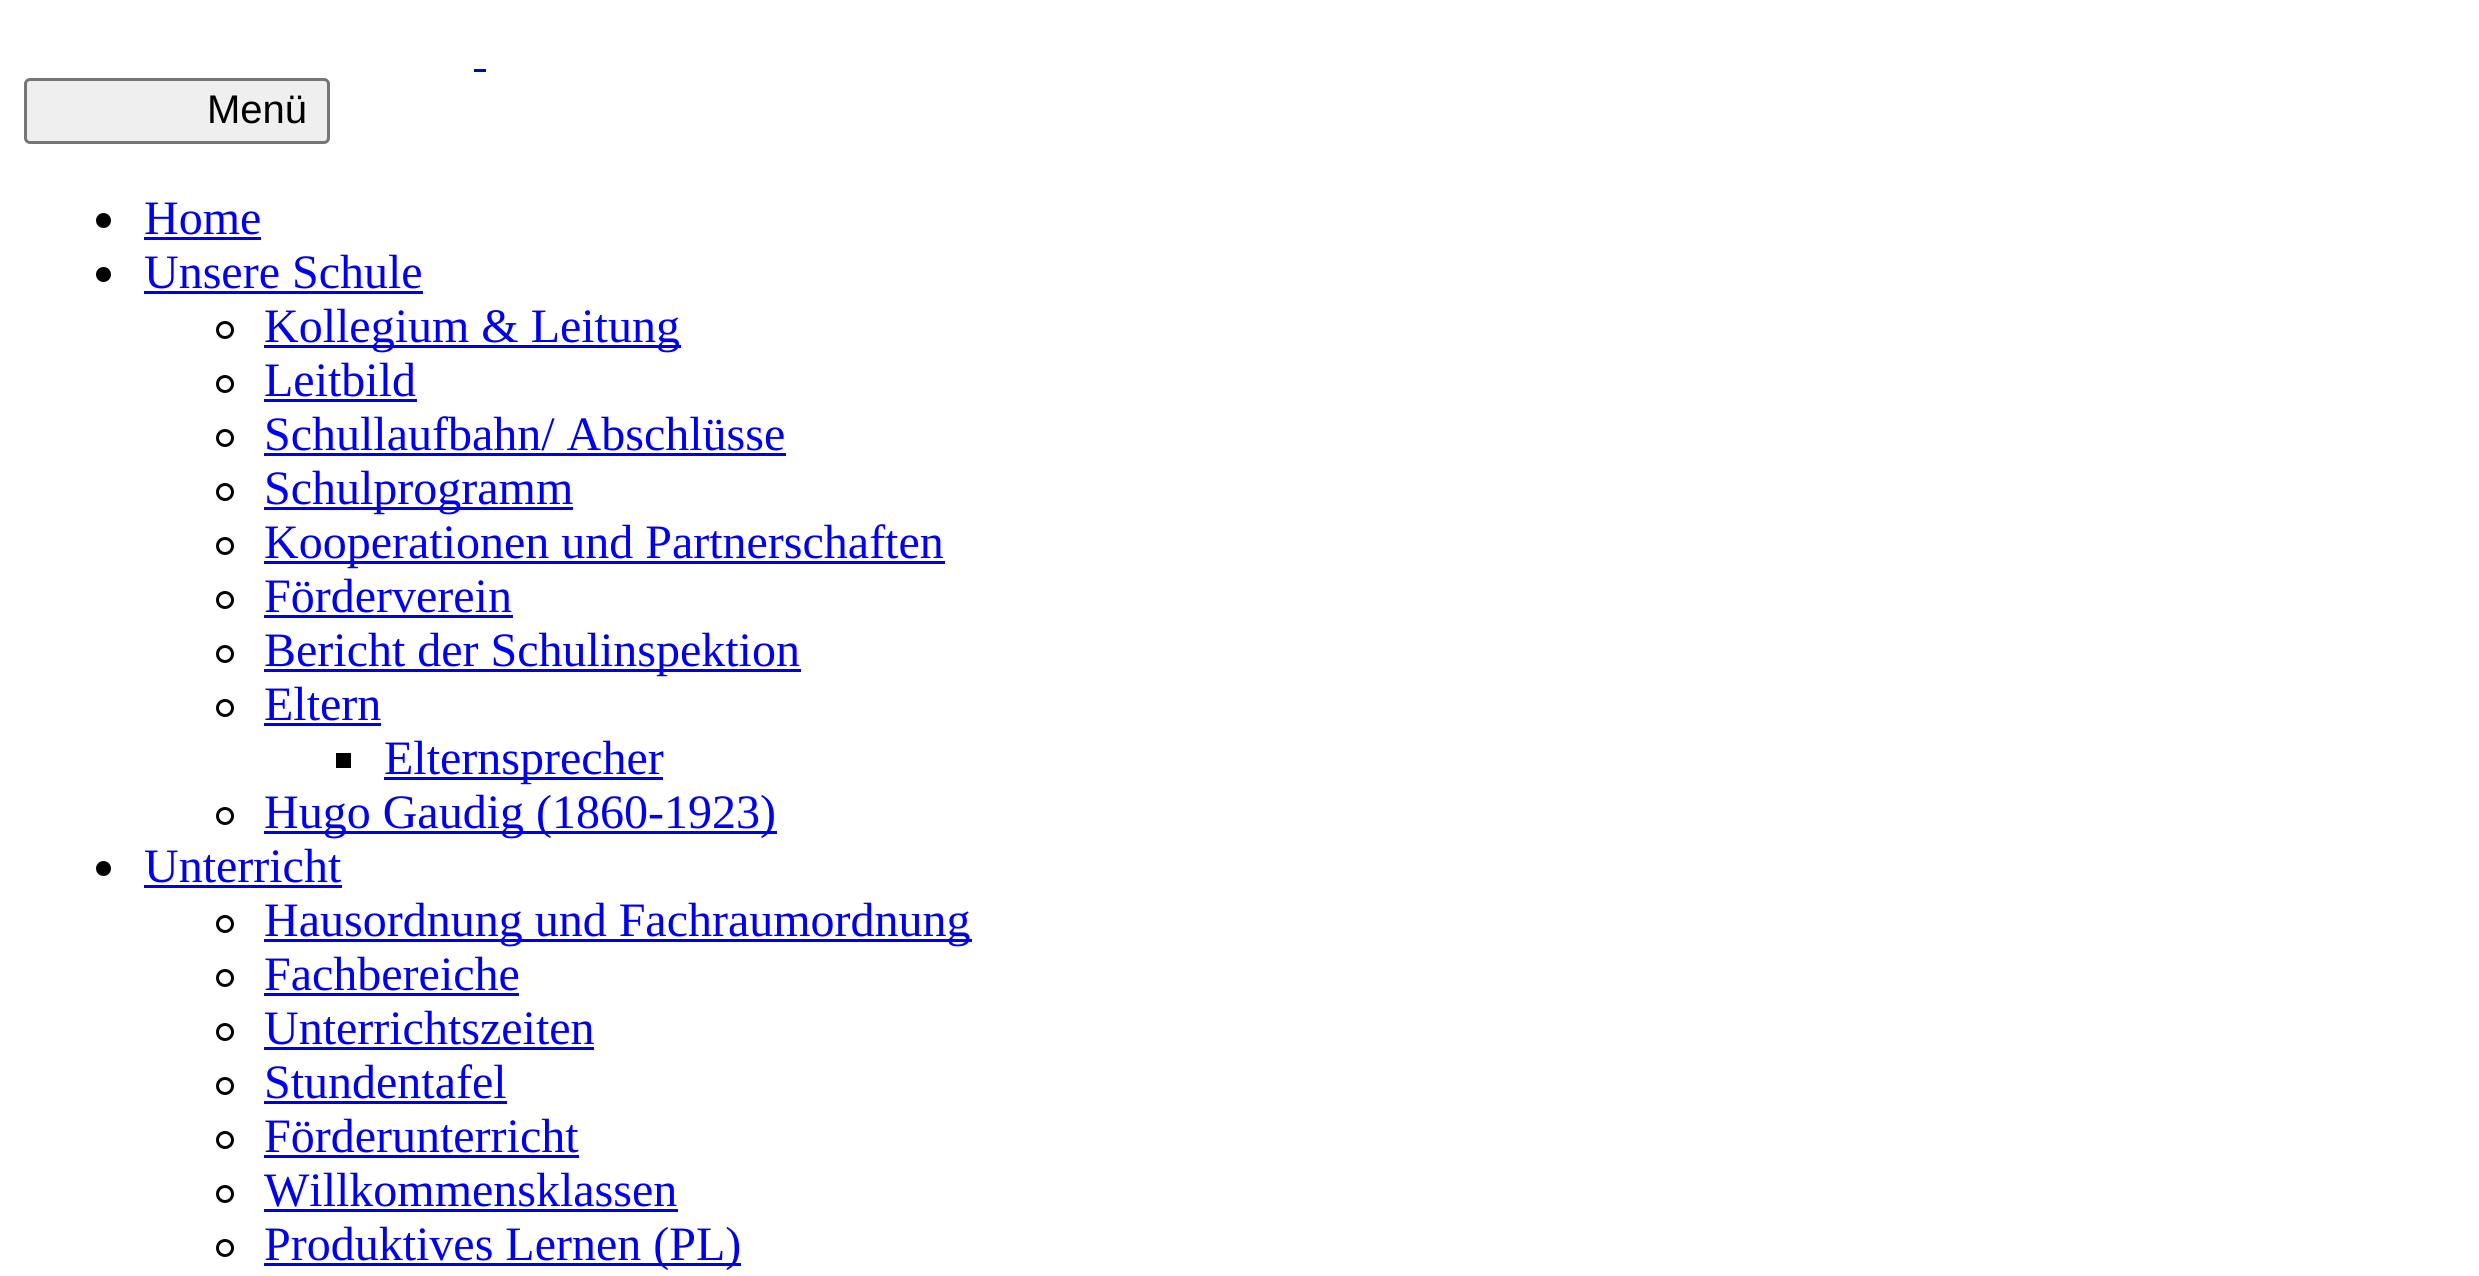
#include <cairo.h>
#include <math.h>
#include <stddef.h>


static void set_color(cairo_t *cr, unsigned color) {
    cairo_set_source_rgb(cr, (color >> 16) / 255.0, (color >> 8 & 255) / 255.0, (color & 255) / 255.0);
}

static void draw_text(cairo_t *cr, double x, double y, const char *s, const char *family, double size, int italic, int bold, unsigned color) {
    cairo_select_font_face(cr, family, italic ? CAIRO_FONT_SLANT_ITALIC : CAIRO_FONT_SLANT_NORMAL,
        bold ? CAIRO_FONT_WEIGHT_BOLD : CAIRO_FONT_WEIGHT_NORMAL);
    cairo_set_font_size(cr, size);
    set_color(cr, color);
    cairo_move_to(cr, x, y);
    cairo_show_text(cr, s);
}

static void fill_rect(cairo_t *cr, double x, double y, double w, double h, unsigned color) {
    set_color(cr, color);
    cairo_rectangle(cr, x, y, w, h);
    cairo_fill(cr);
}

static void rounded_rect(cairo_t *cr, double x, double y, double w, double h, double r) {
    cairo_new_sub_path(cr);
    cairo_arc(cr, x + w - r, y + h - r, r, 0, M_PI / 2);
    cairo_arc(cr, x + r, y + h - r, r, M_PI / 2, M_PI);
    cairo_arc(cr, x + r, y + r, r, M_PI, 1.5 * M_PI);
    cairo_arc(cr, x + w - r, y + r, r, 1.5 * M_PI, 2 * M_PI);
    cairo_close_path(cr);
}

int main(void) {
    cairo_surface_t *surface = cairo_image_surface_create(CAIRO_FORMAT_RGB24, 2479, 1276);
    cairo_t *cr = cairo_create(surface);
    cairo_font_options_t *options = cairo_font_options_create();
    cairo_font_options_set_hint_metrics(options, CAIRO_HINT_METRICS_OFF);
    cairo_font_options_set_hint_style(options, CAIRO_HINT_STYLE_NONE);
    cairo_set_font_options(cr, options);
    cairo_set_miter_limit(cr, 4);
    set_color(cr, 0xFFFFFF);
    cairo_paint(cr);
    fill_rect(cr, 474, 69, 12, 3, 0x0000EE);
    set_color(cr, 0xEFEFEF);
    rounded_rect(cr, 25.5, 79.5, 303, 63, 4.5);
    cairo_fill_preserve(cr);
    set_color(cr, 0x767676);
    cairo_set_line_width(cr, 3);
    cairo_stroke(cr);
    draw_text(cr, 207, 123, "Menü", "Liberation Sans", 40, 0, 0, 0x000000);
    cairo_new_path(cr);
    cairo_arc(cr, 103.5, 220.5, 7.5, 0, 2 * M_PI);
    cairo_fill(cr);
    draw_text(cr, 144, 234, "Home", "Liberation Serif", 48, 0, 0, 0x0000EE);
    fill_rect(cr, 144, 237, 117, 3, 0x0000EE);
    set_color(cr, 0x000000);
    cairo_new_path(cr);
    cairo_arc(cr, 103.5, 274.5, 7.5, 0, 2 * M_PI);
    cairo_fill(cr);
    draw_text(cr, 144, 288, "Unsere Schule", "Liberation Serif", 48, 0, 0, 0x0000EE);
    fill_rect(cr, 144, 291, 279, 3, 0x0000EE);
    cairo_new_path(cr);
    cairo_arc(cr, 225, 330, 7.5, 0, 2 * M_PI);
    set_color(cr, 0x000000);
    cairo_stroke(cr);
    fill_rect(cr, 264, 345, 417, 3, 0x0000EE);
    draw_text(cr, 264, 342, "Kollegium & Leitung", "Liberation Serif", 48, 0, 0, 0x0000EE);
    cairo_new_path(cr);
    cairo_arc(cr, 225, 384, 7.5, 0, 2 * M_PI);
    set_color(cr, 0x000000);
    cairo_stroke(cr);
    draw_text(cr, 264, 396, "Leitbild", "Liberation Serif", 48, 0, 0, 0x0000EE);
    fill_rect(cr, 264, 399, 153, 3, 0x0000EE);
    cairo_new_path(cr);
    cairo_arc(cr, 225, 438, 7.5, 0, 2 * M_PI);
    set_color(cr, 0x000000);
    cairo_stroke(cr);
    draw_text(cr, 264, 450, "Schullaufbahn/ Abschlüsse", "Liberation Serif", 48, 0, 0, 0x0000EE);
    fill_rect(cr, 264, 453, 522, 3, 0x0000EE);
    cairo_new_path(cr);
    cairo_arc(cr, 225, 492, 7.5, 0, 2 * M_PI);
    set_color(cr, 0x000000);
    cairo_stroke(cr);
    fill_rect(cr, 264, 507, 309, 3, 0x0000EE);
    draw_text(cr, 264, 504, "Schulprogramm", "Liberation Serif", 48, 0, 0, 0x0000EE);
    cairo_new_path(cr);
    cairo_arc(cr, 225, 546, 7.5, 0, 2 * M_PI);
    set_color(cr, 0x000000);
    cairo_stroke(cr);
    fill_rect(cr, 264, 561, 681, 3, 0x0000EE);
    draw_text(cr, 264, 558, "Kooperationen und Partnerschaften", "Liberation Serif", 48, 0, 0, 0x0000EE);
    cairo_new_path(cr);
    cairo_arc(cr, 225, 600, 7.5, 0, 2 * M_PI);
    set_color(cr, 0x000000);
    cairo_stroke(cr);
    draw_text(cr, 264, 612, "Förderverein", "Liberation Serif", 48, 0, 0, 0x0000EE);
    fill_rect(cr, 264, 615, 249, 3, 0x0000EE);
    cairo_new_path(cr);
    cairo_arc(cr, 225, 654, 7.5, 0, 2 * M_PI);
    set_color(cr, 0x000000);
    cairo_stroke(cr);
    fill_rect(cr, 264, 669, 537, 3, 0x0000EE);
    draw_text(cr, 264, 666, "Bericht der Schulinspektion", "Liberation Serif", 48, 0, 0, 0x0000EE);
    cairo_new_path(cr);
    cairo_arc(cr, 225, 708, 7.5, 0, 2 * M_PI);
    set_color(cr, 0x000000);
    cairo_stroke(cr);
    draw_text(cr, 264, 720, "Eltern", "Liberation Serif", 48, 0, 0, 0x0000EE);
    fill_rect(cr, 264, 723, 117, 3, 0x0000EE);
    fill_rect(cr, 336, 753, 15, 15, 0x000000);
    fill_rect(cr, 384, 777, 279, 3, 0x0000EE);
    draw_text(cr, 384, 774, "Elternsprecher", "Liberation Serif", 48, 0, 0, 0x0000EE);
    cairo_new_path(cr);
    cairo_arc(cr, 225, 816, 7.5, 0, 2 * M_PI);
    set_color(cr, 0x000000);
    cairo_stroke(cr);
    fill_rect(cr, 264, 831, 513, 3, 0x0000EE);
    draw_text(cr, 264, 828, "Hugo Gaudig (1860-1923)", "Liberation Serif", 48, 0, 0, 0x0000EE);
    set_color(cr, 0x000000);
    cairo_new_path(cr);
    cairo_arc(cr, 103.5, 868.5, 7.5, 0, 2 * M_PI);
    cairo_fill(cr);
    draw_text(cr, 144, 882, "Unterricht", "Liberation Serif", 48, 0, 0, 0x0000EE);
    fill_rect(cr, 144, 885, 198, 3, 0x0000EE);
    cairo_new_path(cr);
    cairo_arc(cr, 225, 924, 7.5, 0, 2 * M_PI);
    set_color(cr, 0x000000);
    cairo_stroke(cr);
    fill_rect(cr, 264, 939, 708, 3, 0x0000EE);
    draw_text(cr, 264, 936, "Hausordnung und Fachraumordnung", "Liberation Serif", 48, 0, 0, 0x0000EE);
    cairo_new_path(cr);
    cairo_arc(cr, 225, 978, 7.5, 0, 2 * M_PI);
    set_color(cr, 0x000000);
    cairo_stroke(cr);
    draw_text(cr, 264, 990, "Fachbereiche", "Liberation Serif", 48, 0, 0, 0x0000EE);
    fill_rect(cr, 264, 993, 255, 3, 0x0000EE);
    cairo_new_path(cr);
    cairo_arc(cr, 225, 1032, 7.5, 0, 2 * M_PI);
    set_color(cr, 0x000000);
    cairo_stroke(cr);
    draw_text(cr, 264, 1044, "Unterrichtszeiten", "Liberation Serif", 48, 0, 0, 0x0000EE);
    fill_rect(cr, 264, 1047, 330, 3, 0x0000EE);
    cairo_new_path(cr);
    cairo_arc(cr, 225, 1086, 7.5, 0, 2 * M_PI);
    set_color(cr, 0x000000);
    cairo_stroke(cr);
    draw_text(cr, 264, 1098, "Stundentafel", "Liberation Serif", 48, 0, 0, 0x0000EE);
    fill_rect(cr, 264, 1101, 243, 3, 0x0000EE);
    cairo_new_path(cr);
    cairo_arc(cr, 225, 1140, 7.5, 0, 2 * M_PI);
    set_color(cr, 0x000000);
    cairo_stroke(cr);
    draw_text(cr, 264, 1152, "Förderunterricht", "Liberation Serif", 48, 0, 0, 0x0000EE);
    fill_rect(cr, 264, 1155, 315, 3, 0x0000EE);
    cairo_new_path(cr);
    cairo_arc(cr, 225, 1194, 7.5, 0, 2 * M_PI);
    set_color(cr, 0x000000);
    cairo_stroke(cr);
    draw_text(cr, 264, 1206, "Willkommensklassen", "Liberation Serif", 48, 0, 0, 0x0000EE);
    fill_rect(cr, 264, 1209, 414, 3, 0x0000EE);
    cairo_new_path(cr);
    cairo_arc(cr, 225, 1248, 7.5, 0, 2 * M_PI);
    set_color(cr, 0x000000);
    cairo_stroke(cr);
    fill_rect(cr, 264, 1263, 477, 3, 0x0000EE);
    draw_text(cr, 264, 1260, "Produktives Lernen (PL)", "Liberation Serif", 48, 0, 0, 0x0000EE);
    cairo_surface_write_to_png(surface, "output.png");
    cairo_font_options_destroy(options);
    cairo_destroy(cr);
    cairo_surface_destroy(surface);
    return 0;
}
